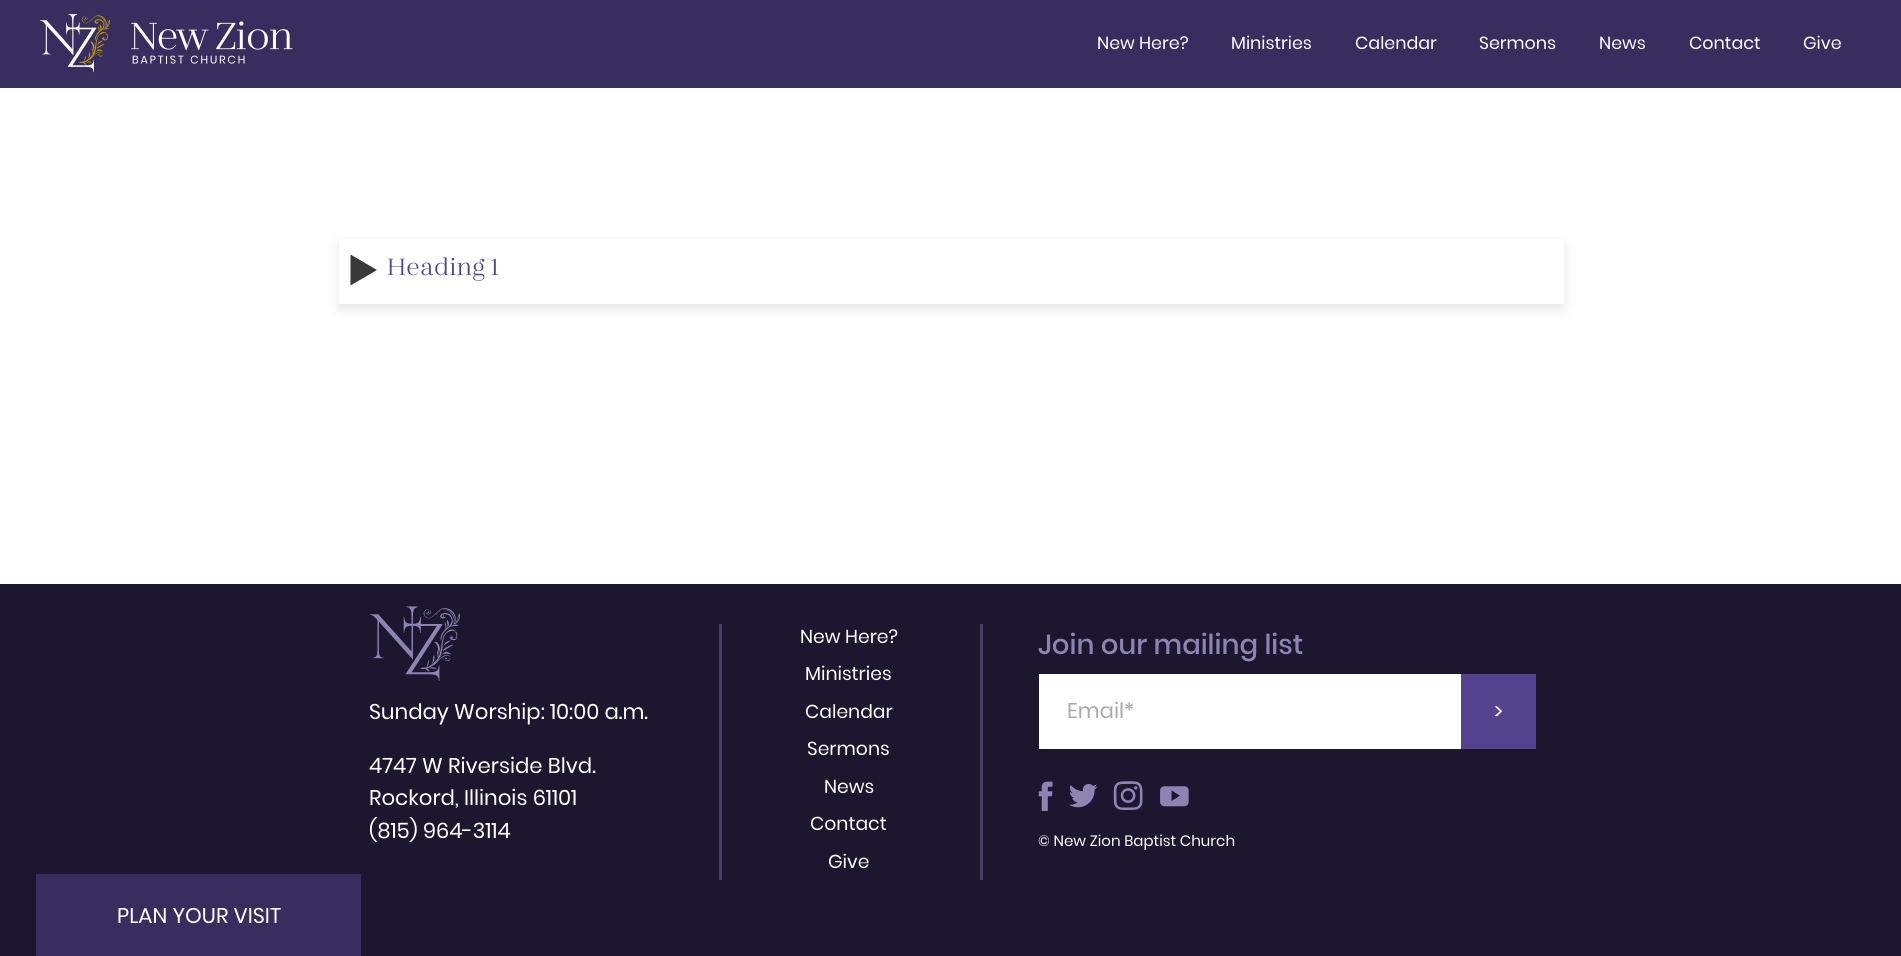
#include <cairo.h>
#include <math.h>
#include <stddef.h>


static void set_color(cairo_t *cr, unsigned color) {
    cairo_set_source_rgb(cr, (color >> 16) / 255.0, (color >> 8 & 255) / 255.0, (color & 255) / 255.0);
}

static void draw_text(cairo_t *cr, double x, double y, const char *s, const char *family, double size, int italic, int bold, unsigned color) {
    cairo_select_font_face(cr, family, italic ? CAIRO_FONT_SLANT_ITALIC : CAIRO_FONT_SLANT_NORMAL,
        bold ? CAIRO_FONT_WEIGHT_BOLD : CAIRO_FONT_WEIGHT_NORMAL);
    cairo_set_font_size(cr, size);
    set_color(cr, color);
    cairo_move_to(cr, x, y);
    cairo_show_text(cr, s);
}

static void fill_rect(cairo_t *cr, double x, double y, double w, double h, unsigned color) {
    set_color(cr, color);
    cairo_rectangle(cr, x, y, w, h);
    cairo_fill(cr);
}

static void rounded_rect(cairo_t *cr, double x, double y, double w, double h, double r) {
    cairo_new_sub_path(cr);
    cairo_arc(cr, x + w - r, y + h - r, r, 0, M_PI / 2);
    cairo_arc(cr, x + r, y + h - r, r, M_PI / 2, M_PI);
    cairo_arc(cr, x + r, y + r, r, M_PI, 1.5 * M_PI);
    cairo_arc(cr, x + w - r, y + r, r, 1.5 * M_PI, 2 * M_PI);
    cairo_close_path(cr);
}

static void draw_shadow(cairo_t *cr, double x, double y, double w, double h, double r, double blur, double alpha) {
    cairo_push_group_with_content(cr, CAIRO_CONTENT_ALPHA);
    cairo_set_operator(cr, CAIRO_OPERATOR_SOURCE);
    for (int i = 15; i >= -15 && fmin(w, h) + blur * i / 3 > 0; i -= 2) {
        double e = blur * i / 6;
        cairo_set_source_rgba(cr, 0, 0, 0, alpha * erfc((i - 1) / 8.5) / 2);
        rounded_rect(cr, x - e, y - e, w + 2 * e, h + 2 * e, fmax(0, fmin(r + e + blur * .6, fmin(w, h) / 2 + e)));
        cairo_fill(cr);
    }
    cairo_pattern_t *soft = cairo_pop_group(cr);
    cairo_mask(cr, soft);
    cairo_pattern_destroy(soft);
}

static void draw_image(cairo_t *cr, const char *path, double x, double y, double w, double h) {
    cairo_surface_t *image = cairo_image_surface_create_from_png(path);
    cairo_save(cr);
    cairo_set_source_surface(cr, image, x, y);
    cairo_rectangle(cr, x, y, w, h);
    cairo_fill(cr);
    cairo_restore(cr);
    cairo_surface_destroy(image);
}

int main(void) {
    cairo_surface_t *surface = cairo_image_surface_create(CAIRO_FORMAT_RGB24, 1901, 956);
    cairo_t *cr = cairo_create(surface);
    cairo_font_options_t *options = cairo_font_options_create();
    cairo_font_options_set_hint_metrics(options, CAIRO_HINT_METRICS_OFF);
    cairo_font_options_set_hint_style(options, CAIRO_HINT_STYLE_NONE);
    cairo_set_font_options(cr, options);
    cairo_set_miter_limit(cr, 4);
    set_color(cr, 0xFFFFFF);
    cairo_paint(cr);
    fill_rect(cr, 0, 0, 1901, 88, 0x372D5F);
    draw_image(cr, "assets/img1.png", 40, 14, 70, 59);
    draw_image(cr, "assets/img2.png", 131, 21, 162, 43);
    draw_text(cr, 1097, 49, "New Here?", "Poppins", 17.5, 0, 0, 0xFFFFFF);
    draw_text(cr, 1231, 49, "Ministries", "Poppins", 17.5, 0, 0, 0xFFFFFF);
    draw_text(cr, 1355, 49, "Calendar", "Poppins", 17.5, 0, 0, 0xFFFFFF);
    draw_text(cr, 1479, 49, "Sermons", "Poppins", 17.5, 0, 0, 0xFFFFFF);
    draw_text(cr, 1599, 49, "News", "Poppins", 17.5, 0, 0, 0xFFFFFF);
    draw_text(cr, 1689, 49, "Contact", "Poppins", 17.5, 0, 0, 0xFFFFFF);
    draw_text(cr, 1803, 49, "Give", "Poppins", 17.5, 0, 0, 0xFFFFFF);
    set_color(cr, 0x000000);
    draw_shadow(cr, 339, 244, 1225, 65, 0, 6, 0.1);
    fill_rect(cr, 339, 239, 1225, 65, 0xFFFFFF);
    set_color(cr, 0x393939);
    cairo_new_path(cr);
    cairo_move_to(cr, 377, 270);
    cairo_line_to(cr, 350.5, 285.5);
    cairo_line_to(cr, 350.5, 254.5);
    cairo_close_path(cr);
    cairo_fill(cr);
    draw_text(cr, 387, 275, "Heading 1", "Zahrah", 26.25, 0, 0, 0x53438E);
    fill_rect(cr, 0, 584, 1901, 372, 0x1C162F);
    draw_image(cr, "assets/img3.png", 370, 606, 90, 75);
    fill_rect(cr, 719, 624, 3, 256, 0x474062);
    draw_text(cr, 800, 643, "New Here?", "Poppins", 18.75, 0, 0, 0xFFFFFF);
    draw_text(cr, 805, 680, "Ministries", "Poppins", 18.75, 0, 0, 0xFFFFFF);
    draw_text(cr, 805, 718, "Calendar", "Poppins", 18.75, 0, 0, 0xFFFFFF);
    draw_text(cr, 807, 755, "Sermons", "Poppins", 18.75, 0, 0, 0xFFFFFF);
    draw_text(cr, 824, 793, "News", "Poppins", 18.75, 0, 0, 0xFFFFFF);
    draw_text(cr, 810, 830, "Contact", "Poppins", 18.75, 0, 0, 0xFFFFFF);
    draw_text(cr, 828, 868, "Give", "Poppins", 18.75, 0, 0, 0xFFFFFF);
    fill_rect(cr, 980, 624, 3, 256, 0x474062);
    draw_text(cr, 1038, 654, "Join our mailing list", "Poppins Medium", 27.5, 0, 0, 0x8E84B4);
    fill_rect(cr, 1039, 674, 422, 75, 0xFFFFFF);
    draw_text(cr, 1067, 718, "Email*", "Poppins", 21.25, 0, 0, 0xABABAB);
    fill_rect(cr, 1461, 674, 75, 75, 0x53438E);
    draw_text(cr, 1494, 719, ">", "Poppins", 21.25, 0, 0, 0xFFFFFF);
    draw_text(cr, 369, 719, "Sunday Worship: 10:00 a.m.", "Poppins", 21.25, 0, 0, 0xFFFFFF);
    draw_text(cr, 369, 773, "4747 W Riverside Blvd.", "Poppins", 21.25, 0, 0, 0xFFFFFF);
    draw_text(cr, 369, 805, "Rockord, Illinois 61101", "Poppins", 21.25, 0, 0, 0xFFFFFF);
    draw_text(cr, 369, 838, "(815) 964-3114", "Poppins", 21.25, 0, 0, 0xFFFFFF);
    draw_image(cr, "assets/img4.png", 1038, 781, 15, 30);
    draw_image(cr, "assets/img5.png", 1069, 783, 29, 25);
    draw_image(cr, "assets/img6.png", 1113, 781, 30, 29);
    draw_image(cr, "assets/img7.png", 1160, 786, 29, 21);
    draw_text(cr, 1038, 846, "© New Zion Baptist Church", "Poppins", 15, 0, 0, 0xFFFFFF);
    fill_rect(cr, 36, 874, 325, 82, 0x372D5F);
    draw_text(cr, 117, 923, "PLAN YOUR VISIT", "Poppins", 21.25, 0, 0, 0xFFFFFF);
    cairo_surface_write_to_png(surface, "output.png");
    cairo_font_options_destroy(options);
    cairo_destroy(cr);
    cairo_surface_destroy(surface);
    return 0;
}
